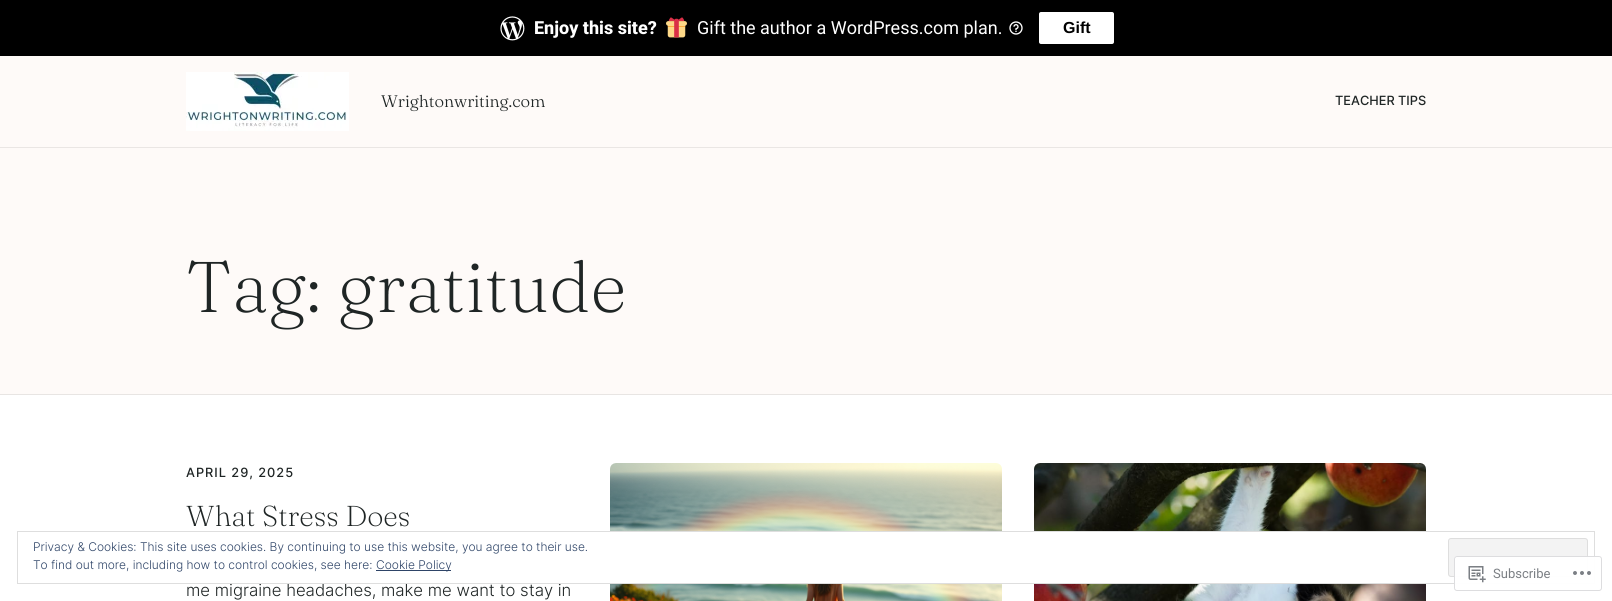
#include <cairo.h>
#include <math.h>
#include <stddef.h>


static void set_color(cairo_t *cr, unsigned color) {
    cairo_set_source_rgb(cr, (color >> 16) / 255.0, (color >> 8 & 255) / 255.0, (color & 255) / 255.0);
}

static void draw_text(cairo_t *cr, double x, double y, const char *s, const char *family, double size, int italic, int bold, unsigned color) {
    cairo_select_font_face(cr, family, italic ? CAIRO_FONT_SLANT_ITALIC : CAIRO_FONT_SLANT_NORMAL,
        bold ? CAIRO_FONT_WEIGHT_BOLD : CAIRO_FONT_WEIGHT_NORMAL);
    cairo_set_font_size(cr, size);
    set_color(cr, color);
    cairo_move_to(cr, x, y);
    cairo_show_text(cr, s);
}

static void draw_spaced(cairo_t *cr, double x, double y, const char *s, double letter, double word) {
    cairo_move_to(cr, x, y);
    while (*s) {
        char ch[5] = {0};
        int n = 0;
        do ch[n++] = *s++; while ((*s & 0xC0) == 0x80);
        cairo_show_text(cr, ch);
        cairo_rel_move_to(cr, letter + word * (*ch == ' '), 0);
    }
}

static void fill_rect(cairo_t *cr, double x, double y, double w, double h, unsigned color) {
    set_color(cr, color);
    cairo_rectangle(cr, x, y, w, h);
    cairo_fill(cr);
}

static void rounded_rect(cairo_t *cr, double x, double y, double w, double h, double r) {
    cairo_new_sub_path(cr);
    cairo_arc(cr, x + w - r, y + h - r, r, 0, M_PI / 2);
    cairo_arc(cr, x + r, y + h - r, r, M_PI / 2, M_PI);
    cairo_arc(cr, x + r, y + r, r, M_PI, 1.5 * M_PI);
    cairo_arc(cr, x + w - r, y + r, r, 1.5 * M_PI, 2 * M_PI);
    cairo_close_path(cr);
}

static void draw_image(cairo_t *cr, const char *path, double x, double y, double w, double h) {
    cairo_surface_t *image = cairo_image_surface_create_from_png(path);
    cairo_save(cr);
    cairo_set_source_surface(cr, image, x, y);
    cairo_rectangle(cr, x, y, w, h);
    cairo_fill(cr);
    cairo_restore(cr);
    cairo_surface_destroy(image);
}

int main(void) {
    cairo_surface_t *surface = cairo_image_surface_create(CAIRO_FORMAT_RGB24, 1612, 601);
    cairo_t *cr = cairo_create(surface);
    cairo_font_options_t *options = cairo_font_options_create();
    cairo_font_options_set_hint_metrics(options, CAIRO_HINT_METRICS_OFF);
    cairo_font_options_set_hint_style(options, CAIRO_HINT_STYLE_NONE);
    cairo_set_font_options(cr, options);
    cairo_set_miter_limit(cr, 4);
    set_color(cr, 0xFFFFFF);
    cairo_paint(cr);
    fill_rect(cr, 0, 0, 1612, 56, 0x000000);
    draw_image(cr, "assets/img1.png", 500, 16, 25, 25);
    draw_text(cr, 534, 34, "Enjoy this site?", "Roboto ExtraBold", 18, 0, 0, 0xFFFFFF);
    draw_image(cr, "assets/img2.png", 666, 17, 21, 21);
    draw_text(cr, 697, 34, "Gift the author a WordPress.com plan.", "Roboto", 18, 0, 0, 0xFFFFFF);
    draw_image(cr, "assets/img3.png", 1009, 21, 14, 14);
    rounded_rect(cr, 1039, 12, 75, 32, 2);
    cairo_fill(cr);
    draw_text(cr, 1063, 33, "Gift", "Liberation Sans", 16, 0, 1, 0x000000);
    fill_rect(cr, 0, 56, 1612, 91, 0xFEFAF8);
    fill_rect(cr, 0, 147, 1612, 1, 0xEAE6E4);
    draw_image(cr, "assets/img4.png", 186, 72, 163, 59);
    draw_text(cr, 381, 107, "Wrightonwriting.com", "Fraunces Light", 16.7, 0, 0, 0x1F2525);
    draw_text(cr, 1335, 105, "TEACHER TIPS", "Inter Medium", 12.75, 0, 0, 0x1F2525);
    fill_rect(cr, 0, 148, 1612, 246, 0xFEFAF8);
    fill_rect(cr, 0, 394, 1612, 1, 0xE8E5E3);
    draw_text(cr, 186, 312, "Tag: gratitude", "Fraunces ExtraLight", 71.5, 0, 0, 0x1F2525);
    cairo_select_font_face(cr, "Inter Medium", CAIRO_FONT_SLANT_NORMAL, CAIRO_FONT_WEIGHT_NORMAL);
    cairo_set_font_size(cr, 12.75);
    draw_spaced(cr, 186, 477, "APRIL 29, 2025", 1, 0);
    draw_text(cr, 186, 526, "What Stress Does", "Fraunces ExtraLight", 28.75, 0, 0, 0x1F2525);
    draw_text(cr, 186, 596, "me migraine headaches, make me want to stay in", "Inter Light", 16.7, 0, 0, 0x1F2525);
    draw_image(cr, "assets/img5.png", 610, 463, 392, 138);
    draw_image(cr, "assets/img6.png", 1034, 463, 392, 138);
    fill_rect(cr, 610, 532, 816, 51, 0xFFFFFF);
    cairo_rectangle(cr, 17.5, 531.5, 1577, 52);
    set_color(cr, 0xDEDEDE);
    cairo_set_line_width(cr, 1);
    cairo_stroke(cr);
    draw_text(cr, 33, 551, "Privacy & Cookies: This site uses cookies. By continuing to use this website, you agree to their use.", "Inter Light", 12, 0, 0, 0x2E4467);
    set_color(cr, 0xF3F3F3);
    rounded_rect(cr, 1448.5, 538.5, 139, 38, 2.5);
    cairo_fill_preserve(cr);
    set_color(cr, 0xDEDEDE);
    cairo_stroke(cr);
    draw_text(cr, 33, 569, "To find out more, including how to control cookies, see here:", "Inter Light", 12, 0, 0, 0x2E4467);
    fill_rect(cr, 376, 570, 75, 1, 0x2E4467);
    draw_text(cr, 376, 569, "Cookie Policy", "Inter Light", 12, 0, 0, 0x2E4467);
    cairo_set_source_rgba(cr, 1, 1, 1, 0.98);
    rounded_rect(cr, 1454, 556, 148, 35, 3);
    cairo_fill(cr);
    rounded_rect(cr, 1454.5, 556.5, 147, 34, 2.5);
    cairo_set_source_rgba(cr, 0.863, 0.863, 0.871, 0.98);
    cairo_stroke(cr);
    draw_image(cr, "assets/img7.png", 1468, 566, 18, 17);
    draw_text(cr, 1493, 578, "Subscribe", "Roboto", 13, 0, 0, 0x7B7F84);
    draw_image(cr, "assets/img8.png", 1573, 571, 18, 4);
    cairo_surface_write_to_png(surface, "output.png");
    cairo_font_options_destroy(options);
    cairo_destroy(cr);
    cairo_surface_destroy(surface);
    return 0;
}
